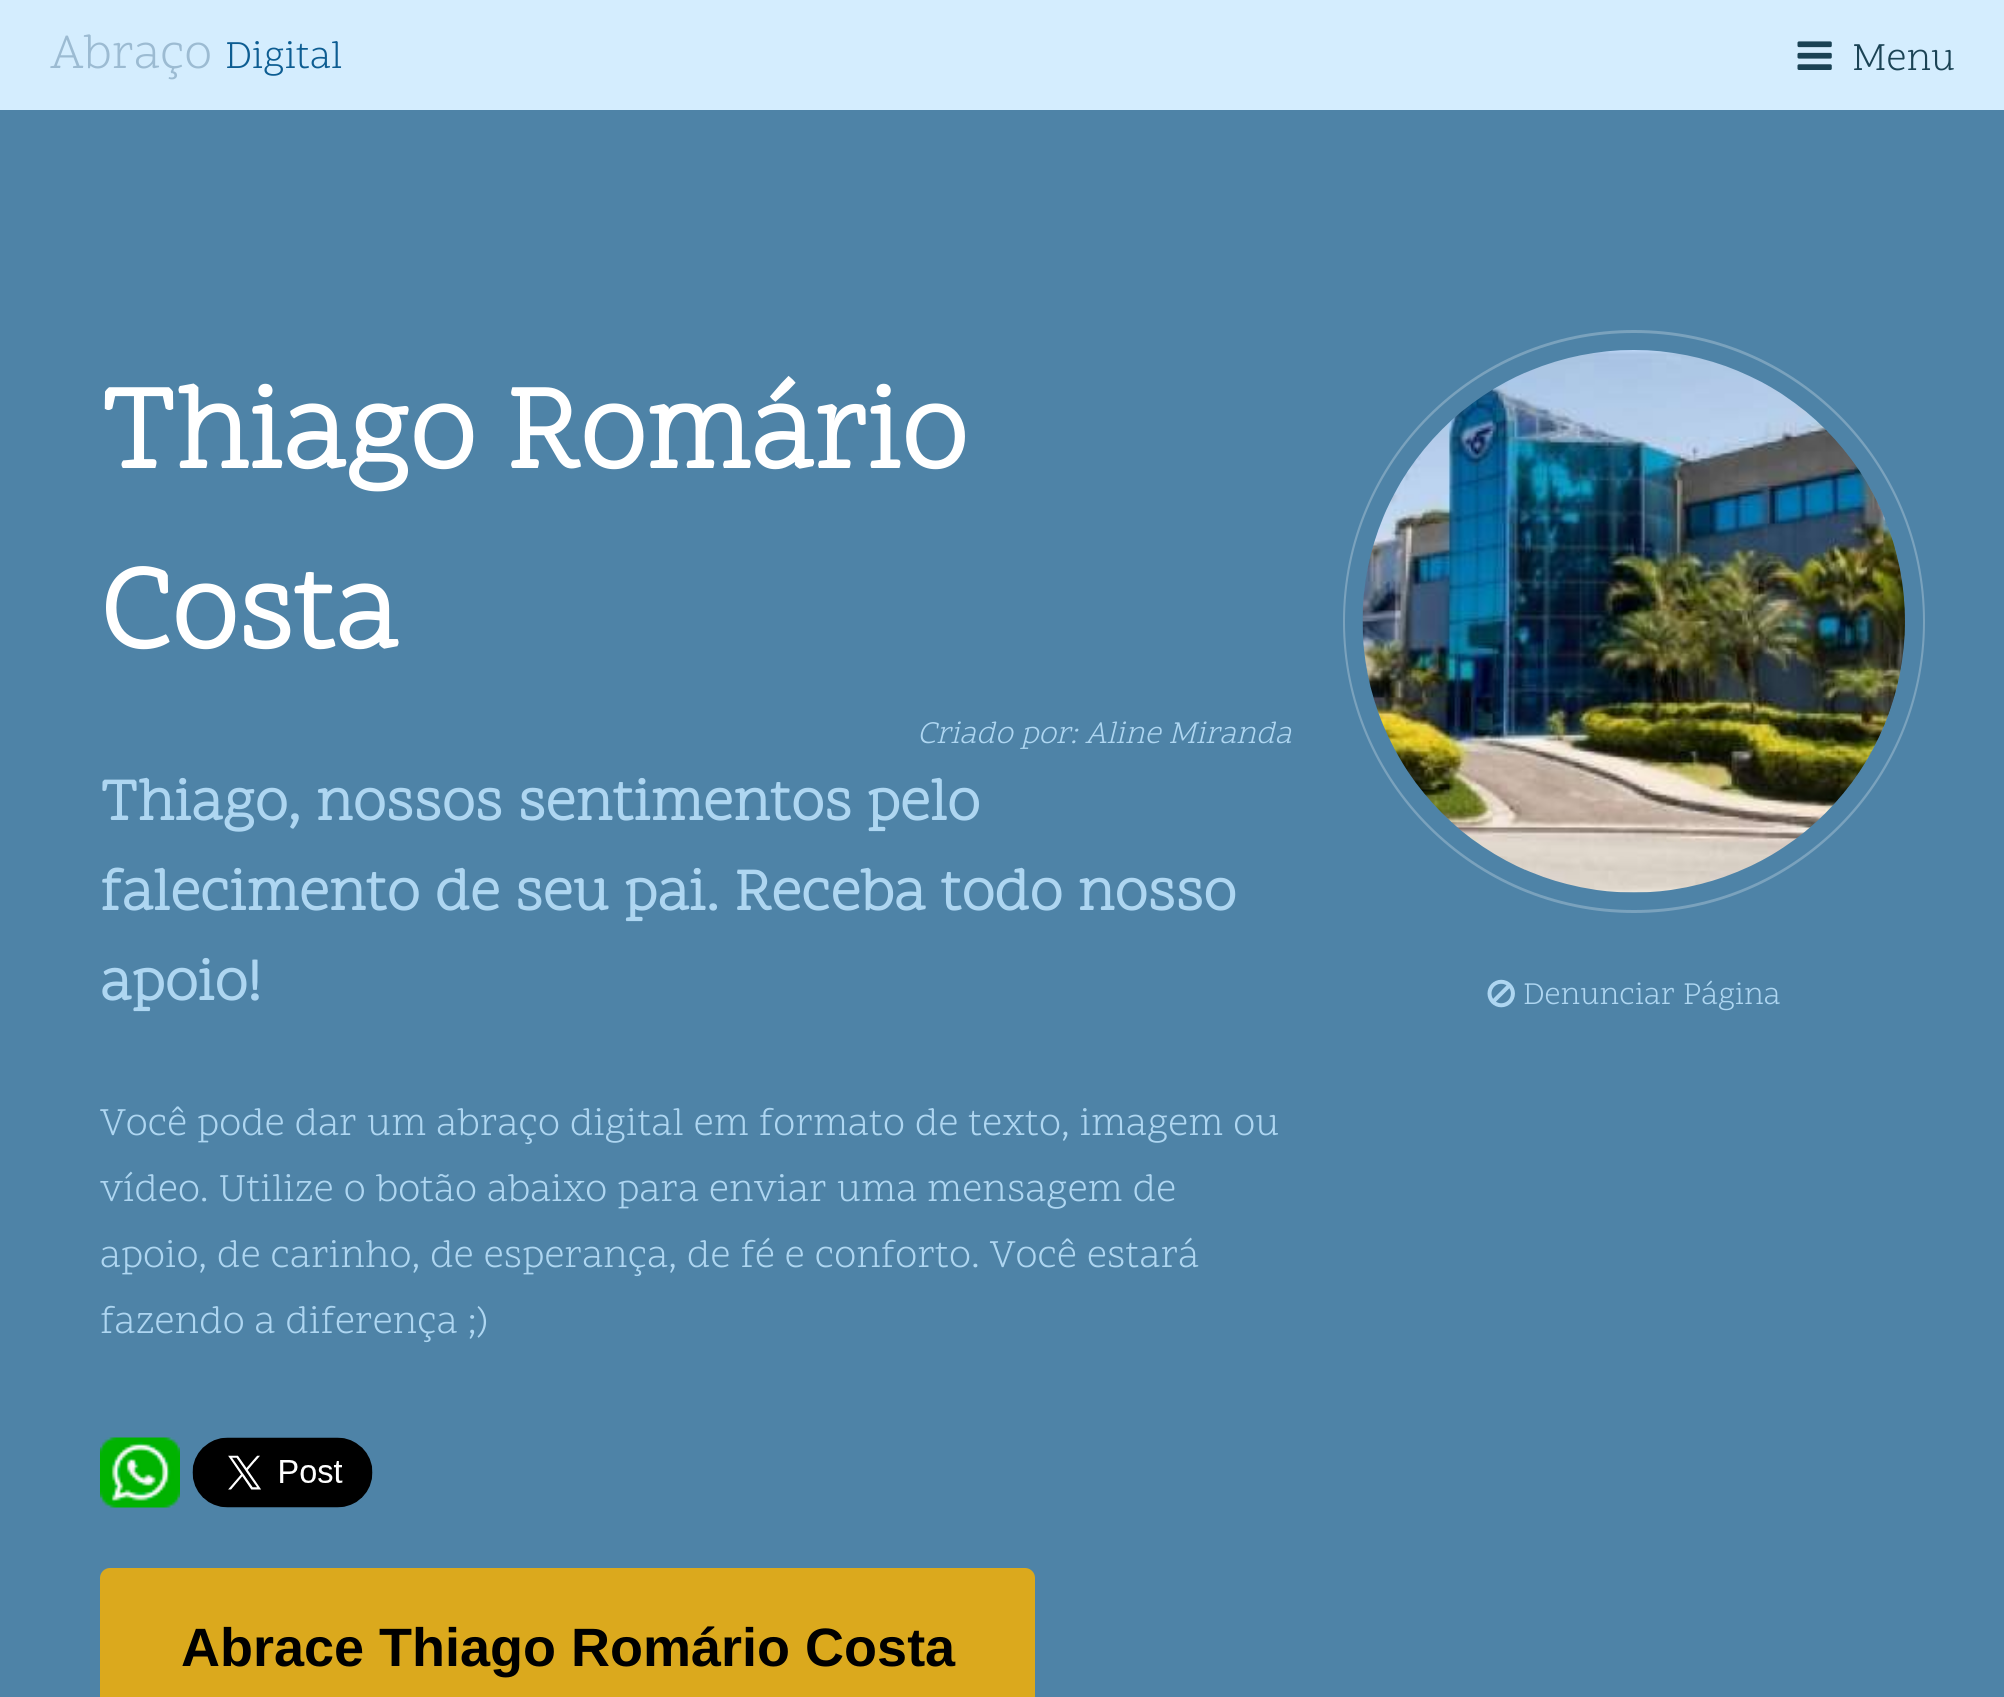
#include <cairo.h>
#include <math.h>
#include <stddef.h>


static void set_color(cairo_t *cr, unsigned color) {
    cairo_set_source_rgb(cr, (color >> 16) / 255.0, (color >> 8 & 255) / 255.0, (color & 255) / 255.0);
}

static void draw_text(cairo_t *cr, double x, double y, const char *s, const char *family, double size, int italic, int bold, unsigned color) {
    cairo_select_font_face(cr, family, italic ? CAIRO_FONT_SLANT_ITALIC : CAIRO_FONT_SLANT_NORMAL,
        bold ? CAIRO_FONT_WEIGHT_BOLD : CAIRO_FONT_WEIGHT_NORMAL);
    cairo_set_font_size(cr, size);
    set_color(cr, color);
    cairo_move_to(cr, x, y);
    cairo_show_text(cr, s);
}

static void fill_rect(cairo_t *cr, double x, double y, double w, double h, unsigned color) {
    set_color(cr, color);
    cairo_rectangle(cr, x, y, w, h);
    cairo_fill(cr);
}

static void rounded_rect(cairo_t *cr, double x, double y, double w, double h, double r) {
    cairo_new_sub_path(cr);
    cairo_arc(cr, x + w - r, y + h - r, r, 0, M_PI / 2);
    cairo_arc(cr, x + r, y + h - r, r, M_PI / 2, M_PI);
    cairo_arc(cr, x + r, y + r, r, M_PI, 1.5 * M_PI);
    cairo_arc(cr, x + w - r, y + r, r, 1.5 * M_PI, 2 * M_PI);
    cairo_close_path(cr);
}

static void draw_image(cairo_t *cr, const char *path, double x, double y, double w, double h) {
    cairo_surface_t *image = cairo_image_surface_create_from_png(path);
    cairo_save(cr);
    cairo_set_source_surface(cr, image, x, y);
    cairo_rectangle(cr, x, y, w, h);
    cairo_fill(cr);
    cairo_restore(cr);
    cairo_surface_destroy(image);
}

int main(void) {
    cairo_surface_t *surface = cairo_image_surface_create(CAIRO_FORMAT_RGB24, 2004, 1697);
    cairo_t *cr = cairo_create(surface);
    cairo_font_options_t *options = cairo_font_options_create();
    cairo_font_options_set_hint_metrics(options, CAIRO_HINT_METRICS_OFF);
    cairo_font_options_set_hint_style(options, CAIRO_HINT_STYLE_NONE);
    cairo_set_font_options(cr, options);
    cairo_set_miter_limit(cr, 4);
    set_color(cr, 0x4E83A7);
    cairo_paint(cr);
    fill_rect(cr, 0, 0, 2004, 110, 0xD4EDFE);
    draw_text(cr, 50, 68, "Abraço", "Scope One", 50, 0, 0, 0x9CBBD2);
    draw_text(cr, 225, 68, "Digital", "Scope One", 40, 0, 0, 0x0D5D92);
    draw_image(cr, "assets/img1.png", 1797, 41, 35, 29);
    draw_text(cr, 1852, 70, "Menu", "Scope One", 40, 0, 0, 0x1B4355);
    draw_text(cr, 100, 468, "Thiago Romário", "Scope One", 120, 0, 1, 0xFFFFFF);
    draw_text(cr, 100, 648, "Costa", "Scope One", 120, 0, 1, 0xFFFFFF);
    draw_text(cr, 917, 743, "Criado por: Aline Miranda", "Scope One", 32, 1, 0, 0xAED6F1);
    draw_text(cr, 100, 820, "Thiago, nossos sentimentos pelo", "Scope One", 60, 0, 1, 0xAED6F1);
    draw_text(cr, 100, 910, "falecimento de seu pai. Receba todo nosso", "Scope One", 60, 0, 1, 0xAED6F1);
    draw_text(cr, 100, 1000, "apoio!", "Scope One", 60, 0, 1, 0xAED6F1);
    draw_text(cr, 100, 1135, "Você pode dar um abraço digital em formato de texto, imagem ou", "Scope One", 40, 0, 0, 0xAED6F1);
    draw_text(cr, 100, 1201, "vídeo. Utilize o botão abaixo para enviar uma mensagem de", "Scope One", 40, 0, 0, 0xAED6F1);
    draw_text(cr, 100, 1267, "apoio, de carinho, de esperança, de fé e conforto. Você estará", "Scope One", 40, 0, 0, 0xAED6F1);
    draw_text(cr, 100, 1333, "fazendo a diferença ;)", "Scope One", 40, 0, 0, 0xAED6F1);
    draw_image(cr, "assets/img2.png", 100, 1437, 80, 71);
    draw_image(cr, "assets/img3.png", 192, 1437, 181, 71);
    rounded_rect(cr, 1353, 340, 562, 563, 281);
    set_color(cr, 0x7AA2BD);
    cairo_set_line_width(cr, 20);
    cairo_stroke(cr);
    rounded_rect(cr, 1354, 342, 560, 559, 279.5);
    set_color(cr, 0x4E83A7);
    cairo_set_line_width(cr, 18);
    cairo_stroke(cr);
    draw_image(cr, "assets/img4.png", 1362, 350, 543, 543);
    draw_image(cr, "assets/img5.png", 1487, 979, 28, 29);
    draw_text(cr, 1523, 1004, "Denunciar Página", "Scope One", 32, 0, 0, 0xAED6F1);
    set_color(cr, 0xDBA91D);
    rounded_rect(cr, 100, 1568, 935, 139, 10);
    cairo_fill(cr);
    draw_text(cr, 181, 1666, "Abrace Thiago Romário Costa", "Liberation Sans", 54, 0, 1, 0x000000);
    cairo_surface_write_to_png(surface, "output.png");
    cairo_font_options_destroy(options);
    cairo_destroy(cr);
    cairo_surface_destroy(surface);
    return 0;
}
